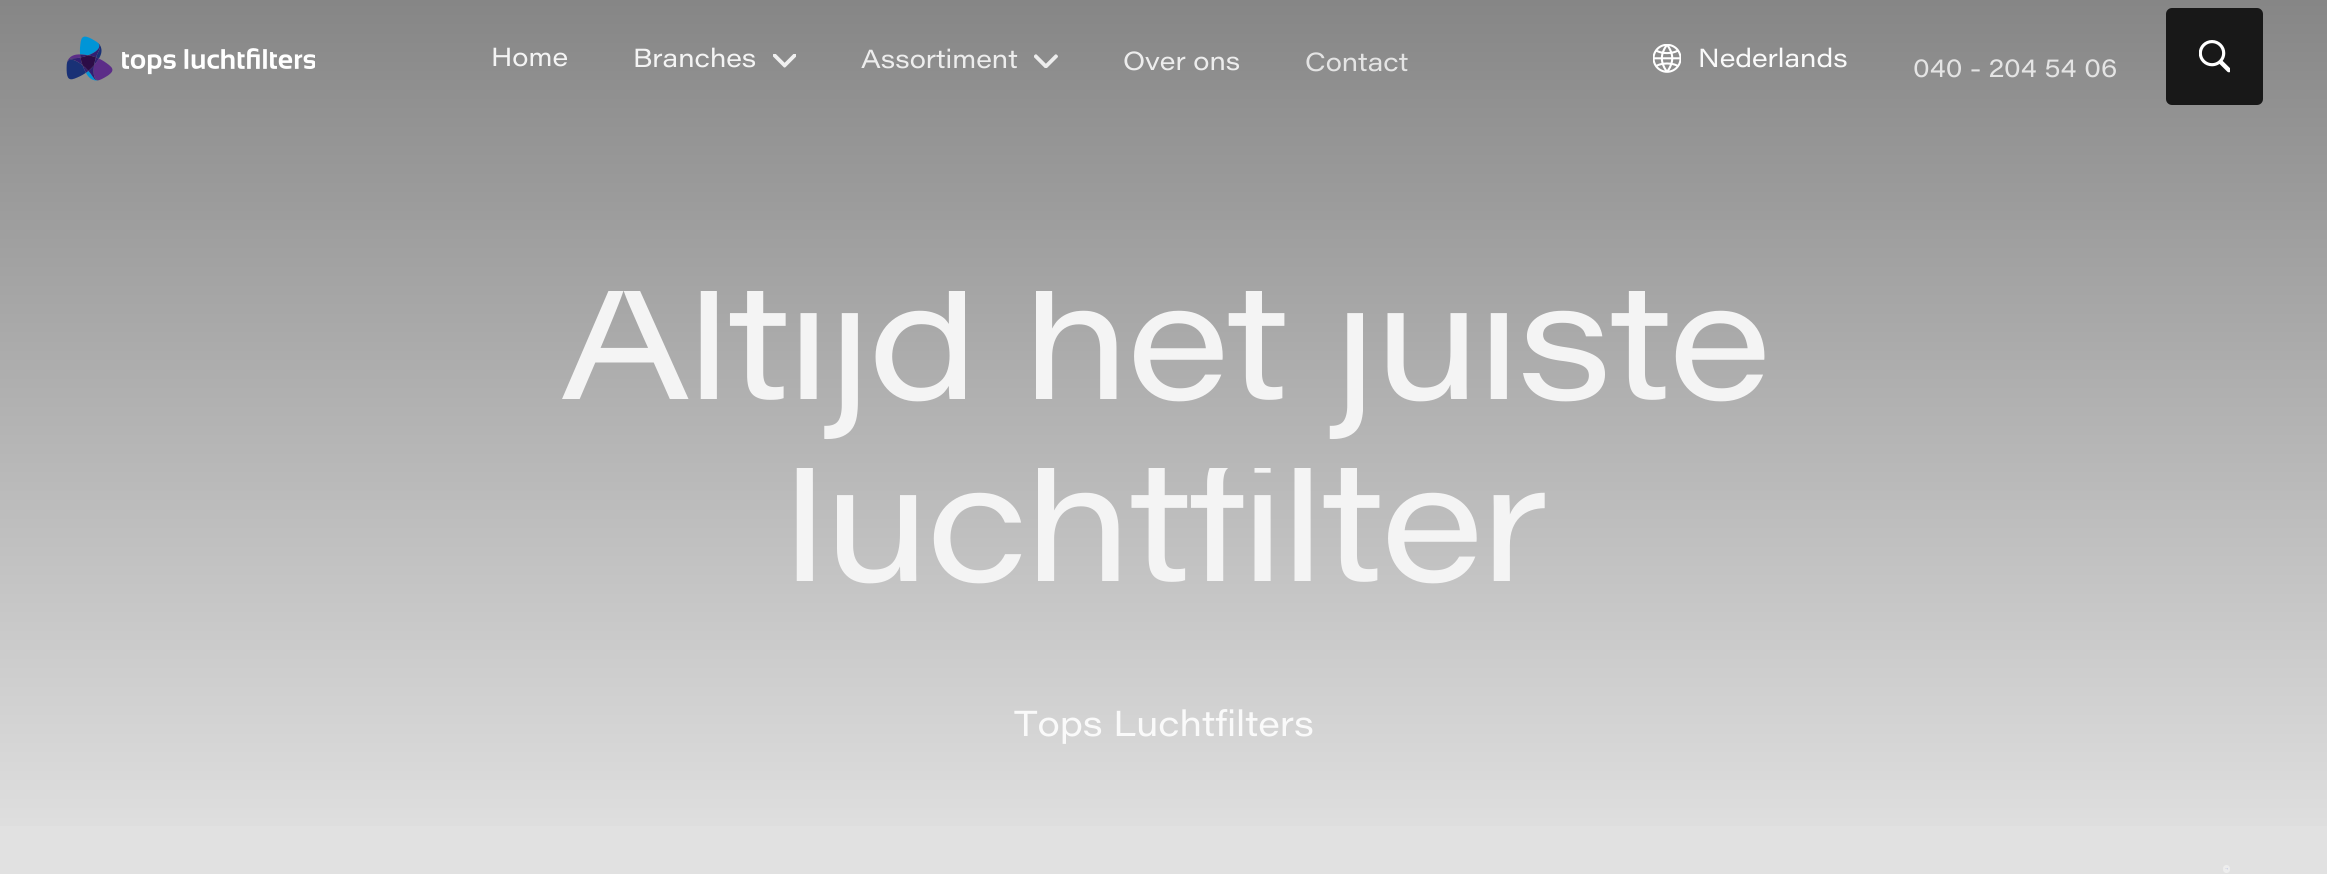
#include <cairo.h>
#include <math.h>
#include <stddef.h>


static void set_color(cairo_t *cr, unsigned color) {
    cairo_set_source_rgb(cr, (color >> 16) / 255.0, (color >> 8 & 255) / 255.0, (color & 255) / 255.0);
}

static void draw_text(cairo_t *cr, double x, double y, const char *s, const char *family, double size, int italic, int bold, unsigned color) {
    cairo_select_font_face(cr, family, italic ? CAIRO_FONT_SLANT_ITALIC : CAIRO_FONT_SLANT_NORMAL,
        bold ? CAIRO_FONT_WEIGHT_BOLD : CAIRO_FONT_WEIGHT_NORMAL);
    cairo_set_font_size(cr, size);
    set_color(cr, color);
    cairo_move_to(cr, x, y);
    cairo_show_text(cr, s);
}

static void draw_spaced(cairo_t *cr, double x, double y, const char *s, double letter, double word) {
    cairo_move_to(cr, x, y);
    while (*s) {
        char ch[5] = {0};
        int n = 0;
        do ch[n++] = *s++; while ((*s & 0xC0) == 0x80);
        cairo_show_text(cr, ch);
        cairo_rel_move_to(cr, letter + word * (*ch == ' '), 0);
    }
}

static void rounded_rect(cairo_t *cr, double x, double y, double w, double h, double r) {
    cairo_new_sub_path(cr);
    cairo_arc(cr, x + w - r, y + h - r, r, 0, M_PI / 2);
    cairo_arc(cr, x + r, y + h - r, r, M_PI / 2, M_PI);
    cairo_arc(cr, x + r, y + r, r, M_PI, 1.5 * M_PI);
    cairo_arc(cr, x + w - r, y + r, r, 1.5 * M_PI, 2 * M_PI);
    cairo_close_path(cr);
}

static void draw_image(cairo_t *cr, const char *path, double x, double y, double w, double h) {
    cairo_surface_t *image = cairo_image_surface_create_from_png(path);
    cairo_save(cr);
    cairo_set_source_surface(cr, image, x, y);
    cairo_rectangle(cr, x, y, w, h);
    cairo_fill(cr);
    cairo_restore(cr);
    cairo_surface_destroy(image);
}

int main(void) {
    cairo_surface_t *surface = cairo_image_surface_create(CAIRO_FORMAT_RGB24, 2327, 874);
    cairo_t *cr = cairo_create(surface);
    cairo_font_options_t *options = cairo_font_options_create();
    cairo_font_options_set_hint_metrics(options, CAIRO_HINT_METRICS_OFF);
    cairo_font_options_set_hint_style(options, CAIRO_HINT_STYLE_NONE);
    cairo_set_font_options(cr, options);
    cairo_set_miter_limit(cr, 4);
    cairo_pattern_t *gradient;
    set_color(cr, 0xE1E1E1);
    cairo_paint(cr);
    gradient = cairo_pattern_create_linear(1164, 840, 1164, 0);
    cairo_pattern_add_color_stop_rgba(gradient, 0, 0.878, 0.878, 0.878, 1);
    cairo_pattern_add_color_stop_rgba(gradient, 1, 0.525, 0.525, 0.525, 1);
    cairo_set_source(cr, gradient);
    cairo_pattern_destroy(gradient);
    cairo_rectangle(cr, 0, 0, 2327, 826);
    cairo_fill(cr);
    draw_image(cr, "assets/img1.png", 66, 36, 249, 45);
    draw_text(cr, 491, 66, "Home", "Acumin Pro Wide", 25.75, 0, 0, 0xF4F4F4);
    draw_text(cr, 633, 67, "Branches", "Acumin Pro Wide", 25.75, 0, 0, 0xF4F4F4);
    draw_image(cr, "assets/img2.png", 773, 54, 23, 14);
    draw_text(cr, 861, 68, "Assortiment", "Acumin Pro Wide", 25.75, 0, 0, 0xEDEDED);
    draw_image(cr, "assets/img3.png", 1034, 54, 24, 14);
    draw_text(cr, 1123, 70, "Over ons", "Acumin Pro Wide", 25.75, 0, 0, 0xEDEDED);
    draw_text(cr, 1305, 71, "Contact", "Acumin Pro Wide", 25.75, 0, 0, 0xE4E4E4);
    draw_image(cr, "assets/img4.png", 1653, 44, 28, 29);
    draw_text(cr, 1698, 67, "Nederlands", "Acumin Pro Wide", 25.75, 0, 0, 0xFAFAFA);
    draw_text(cr, 1913, 77, "040 - 204 54 06", "Acumin Pro Wide", 25.75, 0, 0, 0xE4E4E4);
    set_color(cr, 0x181818);
    rounded_rect(cr, 2166, 8, 97, 97, 6);
    cairo_fill(cr);
    draw_image(cr, "assets/img5.png", 2199, 40, 31, 33);
    cairo_save(cr);
    cairo_rectangle(cr, 243, 291, 1842, 177);
    cairo_clip(cr);
    cairo_set_font_size(cr, 169.75);
    set_color(cr, 0xF4F4F4);
    draw_spaced(cr, 560, 399, "Altijd het juiste", -3.4, 0);
    cairo_restore(cr);
    cairo_save(cr);
    cairo_rectangle(cr, 243, 468, 1842, 176);
    cairo_clip(cr);
    cairo_set_font_size(cr, 169.75);
    set_color(cr, 0xF4F4F4);
    draw_spaced(cr, 783, 581, "luchtfilter", -3.4, 0);
    cairo_restore(cr);
    draw_text(cr, 1014, 736, "Tops Luchtfilters", "Acumin Pro Wide", 35.5, 0, 0, 0xFAFAFA);
    set_color(cr, 0xEDEDED);
    rounded_rect(cr, 2223, 865, 7, 8, 3.5);
    cairo_fill(cr);
    draw_image(cr, "assets/img6.png", 2225, 868, 3, 2);
    cairo_surface_write_to_png(surface, "output.png");
    cairo_font_options_destroy(options);
    cairo_destroy(cr);
    cairo_surface_destroy(surface);
    return 0;
}
